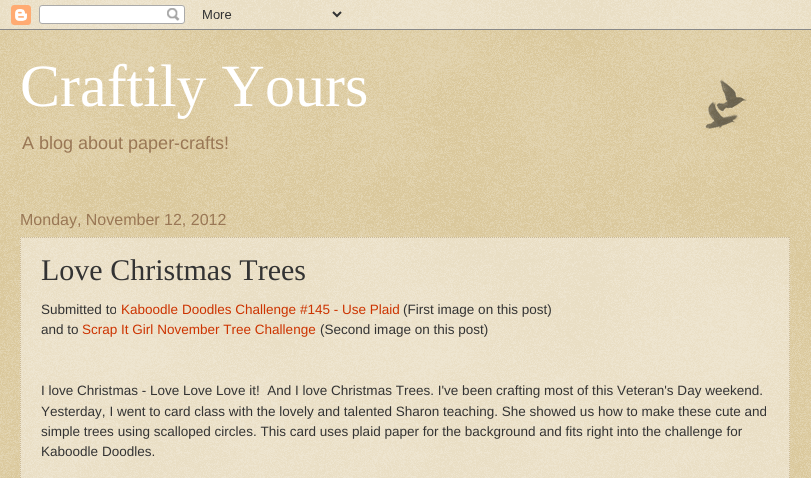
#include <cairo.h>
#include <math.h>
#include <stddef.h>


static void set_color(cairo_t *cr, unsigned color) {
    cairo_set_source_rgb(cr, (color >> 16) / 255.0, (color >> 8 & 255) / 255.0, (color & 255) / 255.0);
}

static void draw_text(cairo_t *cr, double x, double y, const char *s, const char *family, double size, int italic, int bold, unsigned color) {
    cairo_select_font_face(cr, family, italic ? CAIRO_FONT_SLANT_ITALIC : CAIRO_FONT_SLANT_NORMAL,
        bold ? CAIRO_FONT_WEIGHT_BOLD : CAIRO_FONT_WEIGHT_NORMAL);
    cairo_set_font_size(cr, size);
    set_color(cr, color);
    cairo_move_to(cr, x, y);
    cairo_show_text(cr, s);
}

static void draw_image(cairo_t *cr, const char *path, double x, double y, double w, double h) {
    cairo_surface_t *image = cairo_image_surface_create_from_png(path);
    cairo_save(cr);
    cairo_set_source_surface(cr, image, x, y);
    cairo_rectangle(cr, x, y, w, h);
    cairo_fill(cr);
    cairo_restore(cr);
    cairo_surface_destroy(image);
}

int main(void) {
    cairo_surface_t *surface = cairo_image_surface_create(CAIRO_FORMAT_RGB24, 811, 478);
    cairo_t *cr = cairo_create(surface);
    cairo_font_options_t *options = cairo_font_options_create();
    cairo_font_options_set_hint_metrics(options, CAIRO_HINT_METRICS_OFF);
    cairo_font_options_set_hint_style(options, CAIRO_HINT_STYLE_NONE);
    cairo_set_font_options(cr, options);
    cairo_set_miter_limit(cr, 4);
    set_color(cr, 0xC0A154);
    cairo_paint(cr);
    draw_image(cr, "assets/img1.png", 0, 0, 811, 478);
    draw_image(cr, "assets/img2.png", 0, 0, 811, 30);
    draw_text(cr, 20, 106, "Craftily Yours", "Liberation Serif", 60, 0, 0, 0xFFFFFF);
    draw_text(cr, 22, 149, "A blog about paper-crafts!", "Liberation Sans", 18, 0, 0, 0x997755);
    draw_text(cr, 20, 225, "Monday, November 12, 2012", "Liberation Sans", 16, 0, 0, 0x997755);
    cairo_set_source_rgba(cr, 1, 1, 1, 0.4);
    cairo_rectangle(cr, 20, 237, 770, 241);
    cairo_fill(cr);
    cairo_new_path(cr);
    cairo_move_to(cr, 20, 237.5);
    cairo_line_to(cr, 790, 237.5);
    set_color(cr, 0xCCBB99);
    cairo_set_line_width(cr, 1);
    cairo_set_dash(cr, (double[]){1, 1}, 2, 0);
    cairo_stroke(cr);
    cairo_new_path(cr);
    cairo_move_to(cr, 789.5, 237);
    cairo_line_to(cr, 789.5, 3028);
    cairo_stroke(cr);
    cairo_new_path(cr);
    cairo_move_to(cr, 20.5, 237);
    cairo_line_to(cr, 20.5, 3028);
    cairo_stroke(cr);
    draw_text(cr, 41, 280, "Love Christmas Trees", "Liberation Serif", 30, 0, 0, 0x333333);
    draw_text(cr, 41, 314, "Submitted to", "Liberation Sans", 13.52, 0, 0, 0x333333);
    draw_text(cr, 121, 314, "Kaboodle Doodles Challenge #145 - Use Plaid", "Liberation Sans", 13.52, 0, 0, 0xCC3300);
    draw_text(cr, 403, 314, "(First image on this post)", "Liberation Sans", 13.52, 0, 0, 0x333333);
    draw_text(cr, 41, 334, "and to", "Liberation Sans", 13.52, 0, 0, 0x333333);
    draw_text(cr, 82, 334, "Scrap It Girl November Tree Challenge", "Liberation Sans", 13.52, 0, 0, 0xCC3300);
    draw_text(cr, 320, 334, "(Second image on this post)", "Liberation Sans", 13.52, 0, 0, 0x333333);
    draw_text(cr, 41, 395, "I love Christmas - Love Love Love it!  And I love Christmas Trees. I've been crafting most of this Veteran's Day weekend.", "Liberation Sans", 13.52, 0, 0, 0x333333);
    draw_text(cr, 41, 416, "Yesterday, I went to card class with the lovely and talented Sharon teaching. She showed us how to make these cute and", "Liberation Sans", 13.52, 0, 0, 0x333333);
    draw_text(cr, 41, 436, "simple trees using scalloped circles. This card uses plaid paper for the background and fits right into the challenge for", "Liberation Sans", 13.52, 0, 0, 0x333333);
    draw_text(cr, 41, 456, "Kaboodle Doodles.", "Liberation Sans", 13.52, 0, 0, 0x333333);
    draw_image(cr, "assets/img3.png", 705, 79, 42, 50);
    cairo_surface_write_to_png(surface, "output.png");
    cairo_font_options_destroy(options);
    cairo_destroy(cr);
    cairo_surface_destroy(surface);
    return 0;
}
